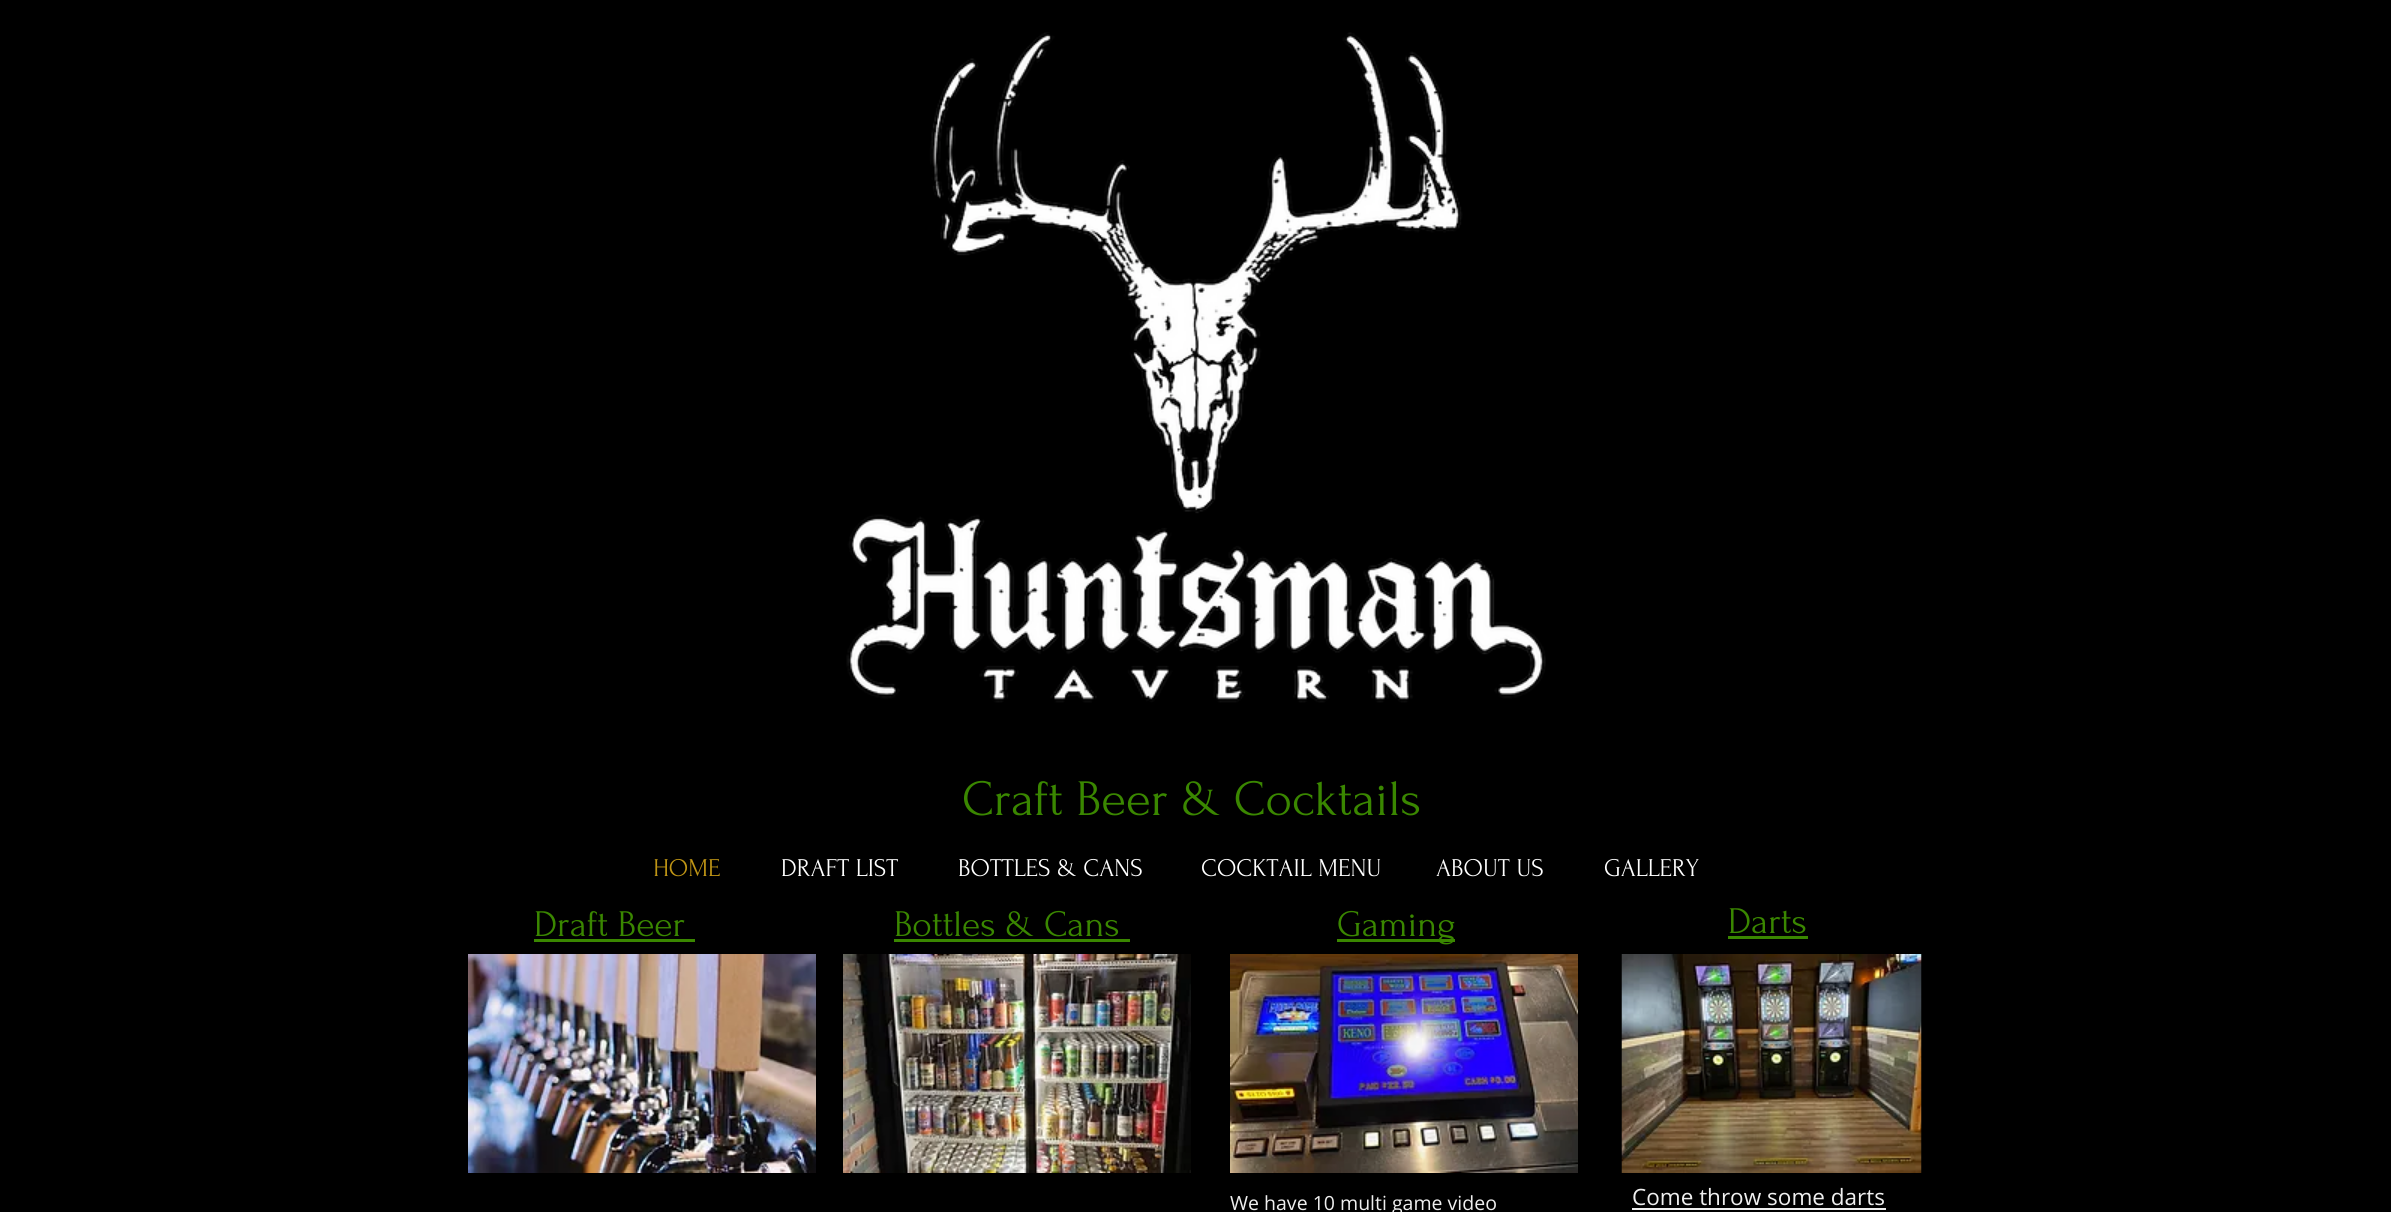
#include <cairo.h>
#include <math.h>
#include <stddef.h>


static void set_color(cairo_t *cr, unsigned color) {
    cairo_set_source_rgb(cr, (color >> 16) / 255.0, (color >> 8 & 255) / 255.0, (color & 255) / 255.0);
}

static void draw_text(cairo_t *cr, double x, double y, const char *s, const char *family, double size, int italic, int bold, unsigned color) {
    cairo_select_font_face(cr, family, italic ? CAIRO_FONT_SLANT_ITALIC : CAIRO_FONT_SLANT_NORMAL,
        bold ? CAIRO_FONT_WEIGHT_BOLD : CAIRO_FONT_WEIGHT_NORMAL);
    cairo_set_font_size(cr, size);
    set_color(cr, color);
    cairo_move_to(cr, x, y);
    cairo_show_text(cr, s);
}

static void fill_rect(cairo_t *cr, double x, double y, double w, double h, unsigned color) {
    set_color(cr, color);
    cairo_rectangle(cr, x, y, w, h);
    cairo_fill(cr);
}

static void draw_image(cairo_t *cr, const char *path, double x, double y, double w, double h) {
    cairo_surface_t *image = cairo_image_surface_create_from_png(path);
    cairo_save(cr);
    cairo_set_source_surface(cr, image, x, y);
    cairo_rectangle(cr, x, y, w, h);
    cairo_fill(cr);
    cairo_restore(cr);
    cairo_surface_destroy(image);
}

int main(void) {
    cairo_surface_t *surface = cairo_image_surface_create(CAIRO_FORMAT_RGB24, 2391, 1212);
    cairo_t *cr = cairo_create(surface);
    cairo_font_options_t *options = cairo_font_options_create();
    cairo_font_options_set_hint_metrics(options, CAIRO_HINT_METRICS_OFF);
    cairo_font_options_set_hint_style(options, CAIRO_HINT_STYLE_NONE);
    cairo_set_font_options(cr, options);
    cairo_set_miter_limit(cr, 4);
    set_color(cr, 0x000000);
    cairo_paint(cr);
    draw_image(cr, "assets/img1.png", 846, 32, 700, 671);
    draw_text(cr, 962, 815, "Craft Beer & Cocktails", "Forum", 51, 0, 0, 0x3A8700);
    draw_text(cr, 653, 876, "HOME", "Forum", 25.5, 0, 0, 0xBF9515);
    draw_text(cr, 781, 876, "DRAFT LIST", "Forum", 25.5, 0, 0, 0xFFFFFF);
    draw_text(cr, 958, 876, "BOTTLES & CANS", "Forum", 25.5, 0, 0, 0xFFFFFF);
    draw_text(cr, 1201, 876, "COCKTAIL MENU", "Forum", 25.5, 0, 0, 0xFFFFFF);
    draw_text(cr, 1436, 876, "ABOUT US", "Forum", 25.5, 0, 0, 0xFFFFFF);
    draw_text(cr, 1604, 876, "GALLERY", "Forum", 25.5, 0, 0, 0xFFFFFF);
    draw_text(cr, 534, 936, "Draft Beer", "Forum", 37.5, 0, 0, 0x3A8700);
    fill_rect(cr, 534, 939, 161, 3, 0x3A8700);
    draw_text(cr, 894, 936, "Bottles & Cans", "Forum", 37.5, 0, 0, 0x3A8700);
    fill_rect(cr, 894, 939, 236, 3, 0x3A8700);
    fill_rect(cr, 1337, 939, 118, 3, 0x3A8700);
    draw_text(cr, 1337, 936, "Gaming", "Forum", 37.5, 0, 0, 0x3A8700);
    draw_text(cr, 1728, 933, "Darts", "Forum", 37.5, 0, 0, 0x3A8700);
    fill_rect(cr, 1728, 936, 80, 3, 0x3A8700);
    draw_image(cr, "assets/img2.png", 468, 954, 348, 219);
    draw_image(cr, "assets/img3.png", 843, 954, 348, 219);
    draw_image(cr, "assets/img4.png", 1230, 954, 348, 219);
    draw_image(cr, "assets/img5.png", 1621, 954, 301, 219);
    draw_text(cr, 1230, 1210, "We have 10 multi game video", "Open Sans", 19.5, 0, 0, 0xEFEFEF);
    draw_text(cr, 1632, 1205, "Come throw some darts", "Open Sans", 22.5, 0, 0, 0xEFEFEF);
    fill_rect(cr, 1632, 1208, 254, 2, 0xEFEFEF);
    cairo_surface_write_to_png(surface, "output.png");
    cairo_font_options_destroy(options);
    cairo_destroy(cr);
    cairo_surface_destroy(surface);
    return 0;
}
